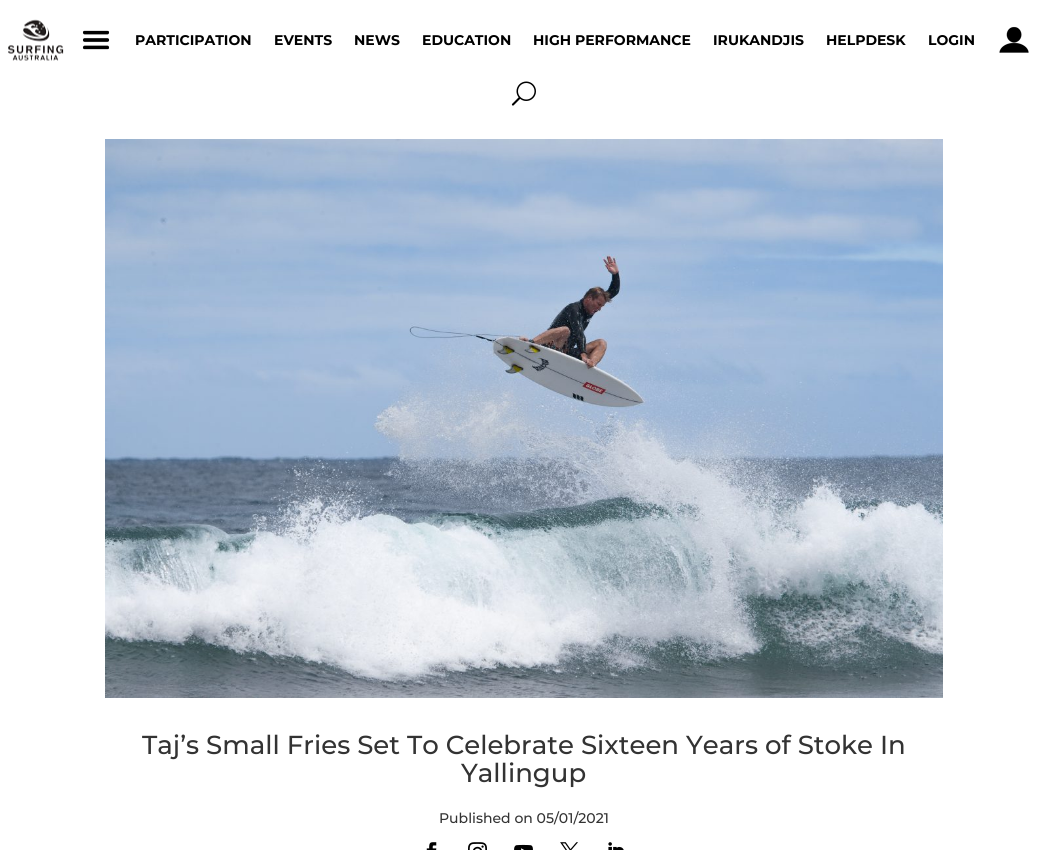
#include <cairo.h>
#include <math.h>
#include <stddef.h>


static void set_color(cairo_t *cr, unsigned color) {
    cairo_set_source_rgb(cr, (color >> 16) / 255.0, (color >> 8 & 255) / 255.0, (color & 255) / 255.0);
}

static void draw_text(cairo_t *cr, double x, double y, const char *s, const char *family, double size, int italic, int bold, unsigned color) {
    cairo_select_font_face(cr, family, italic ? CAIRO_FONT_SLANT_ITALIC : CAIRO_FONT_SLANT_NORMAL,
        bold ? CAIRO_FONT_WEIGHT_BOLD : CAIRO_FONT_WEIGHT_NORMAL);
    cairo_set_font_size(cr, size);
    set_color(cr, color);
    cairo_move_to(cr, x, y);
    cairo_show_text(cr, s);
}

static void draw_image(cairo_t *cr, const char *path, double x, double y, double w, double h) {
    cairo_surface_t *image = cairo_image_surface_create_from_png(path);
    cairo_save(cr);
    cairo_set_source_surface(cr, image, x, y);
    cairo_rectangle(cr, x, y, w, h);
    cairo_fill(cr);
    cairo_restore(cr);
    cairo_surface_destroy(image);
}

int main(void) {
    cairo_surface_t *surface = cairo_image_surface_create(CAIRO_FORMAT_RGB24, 1048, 850);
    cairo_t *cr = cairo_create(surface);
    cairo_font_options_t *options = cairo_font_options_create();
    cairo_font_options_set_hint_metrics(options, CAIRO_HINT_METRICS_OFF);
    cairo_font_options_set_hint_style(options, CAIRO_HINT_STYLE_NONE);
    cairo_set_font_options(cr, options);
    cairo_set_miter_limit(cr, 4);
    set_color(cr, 0xFFFFFF);
    cairo_paint(cr);
    draw_image(cr, "assets/img1.png", 8, 19, 56, 42);
    draw_image(cr, "assets/img2.png", 82, 30, 28, 20);
    draw_text(cr, 135, 45, "PARTICIPATION", "Montserrat", 14, 0, 1, 0x000000);
    draw_text(cr, 274, 45, "EVENTS", "Montserrat", 14, 0, 1, 0x000000);
    draw_text(cr, 354, 45, "NEWS", "Montserrat", 14, 0, 1, 0x000000);
    draw_text(cr, 422, 45, "EDUCATION", "Montserrat", 14, 0, 1, 0x000000);
    draw_text(cr, 533, 45, "HIGH PERFORMANCE", "Montserrat", 14, 0, 1, 0x000000);
    draw_text(cr, 713, 45, "IRUKANDJIS", "Montserrat", 14, 0, 1, 0x000000);
    draw_text(cr, 826, 45, "HELPDESK", "Montserrat", 14, 0, 1, 0x000000);
    draw_text(cr, 928, 45, "LOGIN", "Montserrat", 14, 0, 1, 0x000000);
    draw_image(cr, "assets/img3.png", 999, 26, 30, 27);
    draw_image(cr, "assets/img4.png", 511, 81, 25, 25);
    draw_image(cr, "assets/img5.png", 105, 139, 838, 559);
    draw_text(cr, 142, 754, "Taj’s Small Fries Set To Celebrate Sixteen Years of Stoke In", "Montserrat Medium", 26, 0, 0, 0x333333);
    draw_text(cr, 461, 782, "Yallingup", "Montserrat Medium", 26, 0, 0, 0x333333);
    draw_text(cr, 439, 823, "Published on 05/01/2021", "Montserrat Medium", 14, 0, 0, 0x333333);
    draw_image(cr, "assets/img6.png", 426, 842, 11, 8);
    draw_image(cr, "assets/img7.png", 468, 842, 19, 8);
    draw_image(cr, "assets/img8.png", 514, 844, 19, 6);
    draw_image(cr, "assets/img9.png", 560, 842, 18, 8);
    draw_image(cr, "assets/img10.png", 608, 842, 16, 8);
    cairo_surface_write_to_png(surface, "output.png");
    cairo_font_options_destroy(options);
    cairo_destroy(cr);
    cairo_surface_destroy(surface);
    return 0;
}
